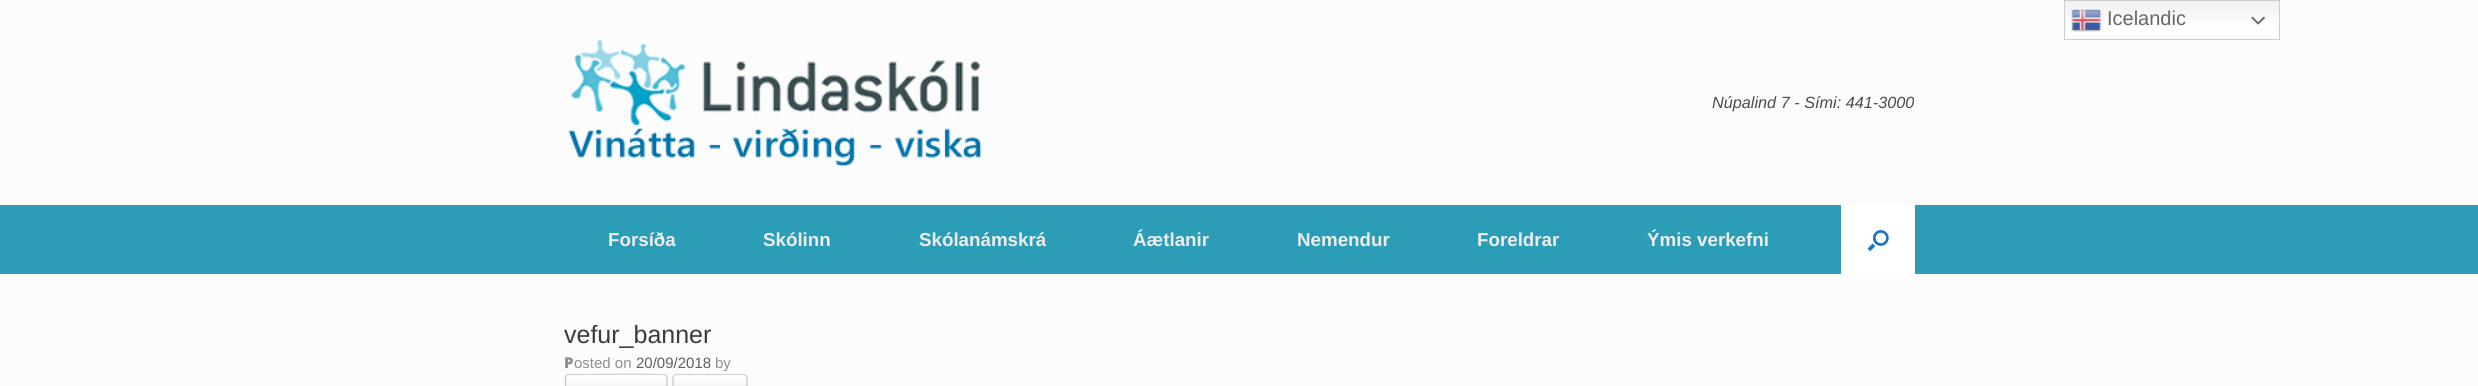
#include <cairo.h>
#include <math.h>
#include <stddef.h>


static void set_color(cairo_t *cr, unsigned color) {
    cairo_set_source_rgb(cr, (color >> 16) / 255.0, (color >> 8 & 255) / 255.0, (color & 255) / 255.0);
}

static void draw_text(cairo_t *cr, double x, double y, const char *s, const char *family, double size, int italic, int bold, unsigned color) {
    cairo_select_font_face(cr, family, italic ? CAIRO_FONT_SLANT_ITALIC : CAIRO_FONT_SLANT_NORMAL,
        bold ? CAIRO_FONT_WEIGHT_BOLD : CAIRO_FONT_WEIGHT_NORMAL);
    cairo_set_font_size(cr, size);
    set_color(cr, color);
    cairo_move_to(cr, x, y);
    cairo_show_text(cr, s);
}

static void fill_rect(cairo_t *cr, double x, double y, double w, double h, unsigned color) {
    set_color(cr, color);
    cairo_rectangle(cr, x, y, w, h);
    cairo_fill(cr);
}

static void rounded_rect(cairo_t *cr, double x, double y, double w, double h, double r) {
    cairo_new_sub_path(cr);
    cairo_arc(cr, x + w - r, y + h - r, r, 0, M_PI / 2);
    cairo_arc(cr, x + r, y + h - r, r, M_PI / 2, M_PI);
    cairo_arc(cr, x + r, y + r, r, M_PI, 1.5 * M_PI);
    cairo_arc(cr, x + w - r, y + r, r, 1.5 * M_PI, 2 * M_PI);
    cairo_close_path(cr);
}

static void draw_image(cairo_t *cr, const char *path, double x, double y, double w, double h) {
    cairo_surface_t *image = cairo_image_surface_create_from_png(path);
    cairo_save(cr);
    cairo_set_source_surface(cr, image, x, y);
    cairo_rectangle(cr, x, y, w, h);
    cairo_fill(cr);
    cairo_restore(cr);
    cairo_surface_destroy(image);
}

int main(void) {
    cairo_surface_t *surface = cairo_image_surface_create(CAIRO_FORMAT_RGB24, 2478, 386);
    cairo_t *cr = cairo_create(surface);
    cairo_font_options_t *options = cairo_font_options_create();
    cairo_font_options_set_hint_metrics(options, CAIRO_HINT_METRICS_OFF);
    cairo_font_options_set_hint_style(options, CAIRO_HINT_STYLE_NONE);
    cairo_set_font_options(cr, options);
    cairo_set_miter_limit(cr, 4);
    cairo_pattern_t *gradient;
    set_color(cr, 0xFCFCFC);
    cairo_paint(cr);
    gradient = cairo_pattern_create_linear(2172, 0, 2172, 40);
    cairo_pattern_add_color_stop_rgba(gradient, 0, 0.937, 0.937, 0.937, 1);
    cairo_pattern_add_color_stop_rgba(gradient, 0.7, 1, 1, 1, 1);
    cairo_set_source(cr, gradient);
    cairo_pattern_destroy(gradient);
    cairo_rectangle(cr, 2065, 1, 214, 38);
    cairo_fill(cr);
    cairo_rectangle(cr, 2064.5, 0.5, 215, 39);
    set_color(cr, 0xCCCCCC);
    cairo_set_line_width(cr, 1);
    cairo_stroke(cr);
    draw_image(cr, "assets/img1.png", 2071, 9, 31, 23);
    draw_text(cr, 2107, 25, "Icelandic", "Liberation Sans", 20, 0, 0, 0x666666);
    draw_image(cr, "assets/img2.png", 2251, 16, 14, 9);
    draw_image(cr, "assets/img3.png", 568, 39, 414, 128);
    draw_text(cr, 1712, 108, "Núpalind 7 - Sími: 441-3000", "Liberation Sans", 16.25, 1, 0, 0x4B4B4B);
    fill_rect(cr, 0, 205, 2478, 69, 0x2C9DB7);
    draw_text(cr, 608, 246, "Forsíða", "Liberation Sans", 18.75, 0, 1, 0xEDEDED);
    draw_text(cr, 763, 246, "Skólinn", "Liberation Sans", 18.75, 0, 1, 0xEDEDED);
    draw_text(cr, 919, 246, "Skólanámskrá", "Liberation Sans", 18.75, 0, 1, 0xEDEDED);
    draw_text(cr, 1133, 246, "Áætlanir", "Liberation Sans", 18.75, 0, 1, 0xEDEDED);
    draw_text(cr, 1297, 246, "Nemendur", "Liberation Sans", 18.75, 0, 1, 0xEDEDED);
    draw_text(cr, 1477, 246, "Foreldrar", "Liberation Sans", 18.75, 0, 1, 0xEDEDED);
    draw_text(cr, 1647, 246, "Ýmis verkefni", "Liberation Sans", 18.75, 0, 1, 0xEDEDED);
    fill_rect(cr, 1841, 205, 74, 69, 0xFFFFFF);
    draw_image(cr, "assets/img4.png", 1867, 230, 22, 22);
    draw_text(cr, 564, 343, "vefur_banner", "Liberation Sans", 25, 0, 0, 0x3B3B3B);
    draw_text(cr, 564, 368, "P", "Noto Sans Black", 15, 0, 0, 0x8F8F8F);
    draw_text(cr, 574, 368, "osted on", "Liberation Sans", 15, 0, 0, 0x8F8F8F);
    draw_text(cr, 636, 368, "20/09/2018", "Liberation Sans", 15, 0, 0, 0x5E5E5E);
    draw_text(cr, 715, 368, "by", "Liberation Sans", 15, 0, 0, 0x8F8F8F);
    cairo_save(cr);
    rounded_rect(cr, 565, 374, 103, 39, 4);
    cairo_clip(cr);
    gradient = cairo_pattern_create_linear(566, 375, 566, 339);
    cairo_pattern_add_color_stop_rgba(gradient, 0, 0.875, 0.875, 0.875, 1);
    cairo_pattern_add_color_stop_rgba(gradient, 1, 1, 1, 1, 1);
    cairo_set_source(cr, gradient);
    cairo_pattern_destroy(gradient);
    cairo_rectangle(cr, 565, 374, 103, 1);
    cairo_fill(cr);
    gradient = cairo_pattern_create_linear(566, 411, 566, 375);
    cairo_pattern_add_color_stop_rgba(gradient, 0, 0.875, 0.875, 0.875, 1);
    cairo_pattern_add_color_stop_rgba(gradient, 1, 1, 1, 1, 1);
    cairo_set_source(cr, gradient);
    cairo_pattern_destroy(gradient);
    cairo_rectangle(cr, 565, 375, 103, 11);
    cairo_fill(cr);
    cairo_restore(cr);
    cairo_new_path(cr);
    cairo_move_to(cr, 566.5, 375.5);
    cairo_line_to(cr, 569, 374.5);
    cairo_line_to(cr, 584.5, 374.5);
    cairo_curve_to(cr, 593, 374.5, 663.5, 373.5, 665.5, 375);
    cairo_line_to(cr, 666, 375.5);
    set_color(cr, 0xD2D2D2);
    cairo_set_line_width(cr, 1.2);
    cairo_stroke(cr);
    cairo_new_path(cr);
    cairo_move_to(cr, 666, 375.5);
    cairo_curve_to(cr, 666.5, 376, 667, 376.5, 667, 377.5);
    cairo_line_to(cr, 667, 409);
    cairo_curve_to(cr, 667, 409.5, 666.5, 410.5, 666, 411);
    set_color(cr, 0xC3C3C3);
    cairo_stroke(cr);
    cairo_new_path(cr);
    cairo_move_to(cr, 566.5, 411);
    cairo_curve_to(cr, 566, 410.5, 565.5, 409.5, 565.5, 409);
    cairo_line_to(cr, 565.5, 377.5);
    cairo_curve_to(cr, 565.5, 376.5, 566, 376, 566.5, 375.5);
    cairo_stroke(cr);
    cairo_save(cr);
    rounded_rect(cr, 673, 374, 75, 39, 4);
    cairo_clip(cr);
    gradient = cairo_pattern_create_linear(674, 375, 674, 339);
    cairo_pattern_add_color_stop_rgba(gradient, 0, 0.875, 0.875, 0.875, 1);
    cairo_pattern_add_color_stop_rgba(gradient, 1, 1, 1, 1, 1);
    cairo_set_source(cr, gradient);
    cairo_pattern_destroy(gradient);
    cairo_rectangle(cr, 673, 374, 75, 1);
    cairo_fill(cr);
    gradient = cairo_pattern_create_linear(674, 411, 674, 375);
    cairo_pattern_add_color_stop_rgba(gradient, 0, 0.875, 0.875, 0.875, 1);
    cairo_pattern_add_color_stop_rgba(gradient, 1, 1, 1, 1, 1);
    cairo_set_source(cr, gradient);
    cairo_pattern_destroy(gradient);
    cairo_rectangle(cr, 673, 375, 75, 11);
    cairo_fill(cr);
    cairo_restore(cr);
    cairo_new_path(cr);
    cairo_move_to(cr, 674, 375.5);
    cairo_line_to(cr, 676, 374.5);
    cairo_line_to(cr, 744, 374.5);
    cairo_line_to(cr, 746, 375.5);
    set_color(cr, 0xD2D2D2);
    cairo_stroke(cr);
    cairo_new_path(cr);
    cairo_move_to(cr, 746, 375.5);
    cairo_curve_to(cr, 746.5, 376, 747, 376.5, 747, 377.5);
    cairo_line_to(cr, 747, 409);
    cairo_curve_to(cr, 747, 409.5, 746.5, 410.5, 746, 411);
    set_color(cr, 0xC3C3C3);
    cairo_stroke(cr);
    cairo_new_path(cr);
    cairo_move_to(cr, 674, 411);
    cairo_curve_to(cr, 673.5, 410.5, 673, 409.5, 673, 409);
    cairo_line_to(cr, 673, 377.5);
    cairo_curve_to(cr, 673, 376.5, 673.5, 376, 674, 375.5);
    cairo_stroke(cr);
    cairo_surface_write_to_png(surface, "output.png");
    cairo_font_options_destroy(options);
    cairo_destroy(cr);
    cairo_surface_destroy(surface);
    return 0;
}
